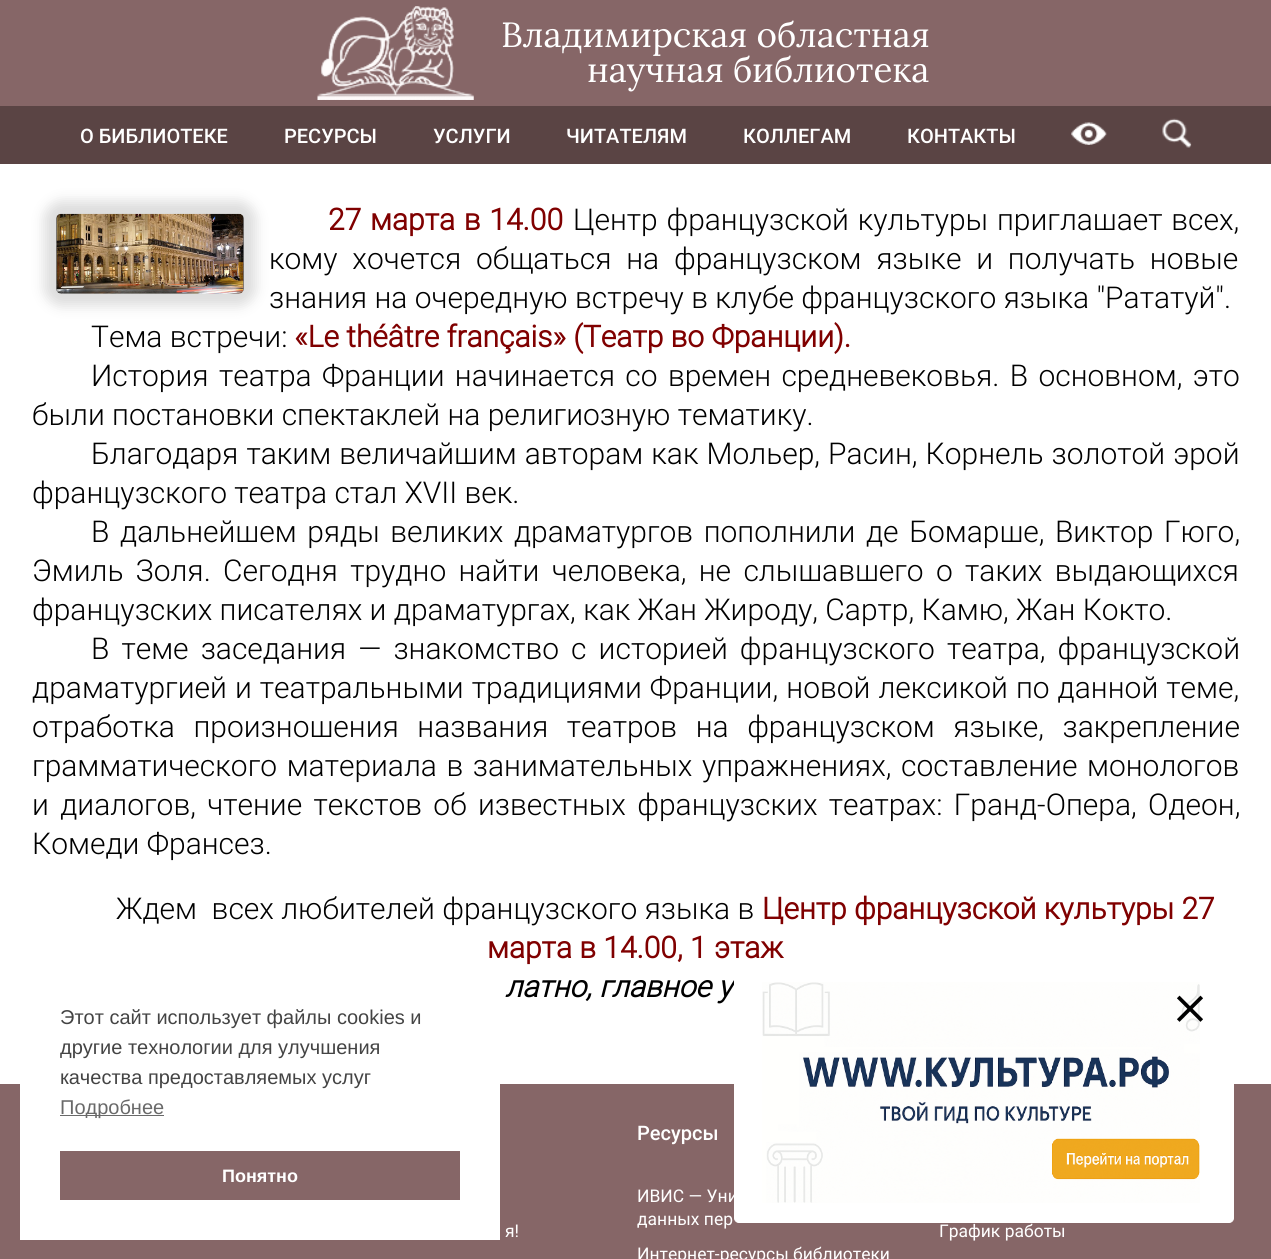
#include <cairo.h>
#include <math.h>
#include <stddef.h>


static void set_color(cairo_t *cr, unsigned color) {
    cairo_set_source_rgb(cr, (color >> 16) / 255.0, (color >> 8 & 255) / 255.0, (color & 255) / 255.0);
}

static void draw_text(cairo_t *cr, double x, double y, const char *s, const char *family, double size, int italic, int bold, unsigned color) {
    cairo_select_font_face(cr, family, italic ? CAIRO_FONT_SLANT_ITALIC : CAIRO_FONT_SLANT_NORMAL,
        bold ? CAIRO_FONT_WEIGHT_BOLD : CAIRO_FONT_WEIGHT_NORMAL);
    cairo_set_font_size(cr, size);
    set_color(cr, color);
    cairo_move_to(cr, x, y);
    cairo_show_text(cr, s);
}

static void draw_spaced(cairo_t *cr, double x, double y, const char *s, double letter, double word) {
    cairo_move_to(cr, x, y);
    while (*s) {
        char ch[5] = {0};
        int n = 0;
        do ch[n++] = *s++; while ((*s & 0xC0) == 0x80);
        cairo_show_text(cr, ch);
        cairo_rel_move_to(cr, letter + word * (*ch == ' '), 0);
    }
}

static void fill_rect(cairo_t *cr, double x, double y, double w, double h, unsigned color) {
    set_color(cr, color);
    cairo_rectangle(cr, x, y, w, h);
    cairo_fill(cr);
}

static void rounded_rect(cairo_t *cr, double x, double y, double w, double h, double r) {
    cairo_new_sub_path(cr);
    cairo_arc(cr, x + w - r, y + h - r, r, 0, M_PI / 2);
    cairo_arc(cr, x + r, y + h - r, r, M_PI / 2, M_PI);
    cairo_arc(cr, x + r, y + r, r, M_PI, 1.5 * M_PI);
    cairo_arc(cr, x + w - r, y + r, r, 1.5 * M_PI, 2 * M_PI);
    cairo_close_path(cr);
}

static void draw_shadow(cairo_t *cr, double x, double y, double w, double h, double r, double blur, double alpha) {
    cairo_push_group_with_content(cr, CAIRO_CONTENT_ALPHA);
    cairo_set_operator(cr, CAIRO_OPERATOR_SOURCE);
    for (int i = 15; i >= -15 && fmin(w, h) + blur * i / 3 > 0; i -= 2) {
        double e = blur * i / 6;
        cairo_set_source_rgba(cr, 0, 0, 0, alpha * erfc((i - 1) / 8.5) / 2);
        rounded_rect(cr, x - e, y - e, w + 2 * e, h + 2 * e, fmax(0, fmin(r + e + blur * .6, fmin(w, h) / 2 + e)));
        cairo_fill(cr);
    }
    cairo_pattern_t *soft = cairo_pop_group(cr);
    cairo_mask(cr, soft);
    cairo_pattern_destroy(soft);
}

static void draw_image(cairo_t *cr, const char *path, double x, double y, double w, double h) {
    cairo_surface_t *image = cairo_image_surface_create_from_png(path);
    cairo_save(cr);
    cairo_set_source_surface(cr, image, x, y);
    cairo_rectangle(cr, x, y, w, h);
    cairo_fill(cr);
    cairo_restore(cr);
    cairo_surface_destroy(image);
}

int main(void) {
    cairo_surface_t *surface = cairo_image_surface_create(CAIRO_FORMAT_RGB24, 1271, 1259);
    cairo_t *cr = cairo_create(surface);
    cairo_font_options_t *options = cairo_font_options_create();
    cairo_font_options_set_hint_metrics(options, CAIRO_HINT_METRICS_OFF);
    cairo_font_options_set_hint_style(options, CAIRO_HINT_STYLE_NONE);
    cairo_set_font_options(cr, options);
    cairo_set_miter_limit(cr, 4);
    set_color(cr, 0xFFFFFF);
    cairo_paint(cr);
    fill_rect(cr, 0, 0, 1271, 106, 0x866667);
    draw_image(cr, "assets/img1.png", 317, 6, 157, 94);
    draw_text(cr, 501, 47, "Владимирская областная", "Lora", 35, 0, 0, 0xFFFFFF);
    draw_text(cr, 587, 82, "научная библиотека", "Lora", 35, 0, 0, 0xFFFFFF);
    fill_rect(cr, 0, 106, 1271, 58, 0x5A4444);
    draw_text(cr, 80, 143, "О БИБЛИОТЕКЕ", "Roboto Medium", 20, 0, 0, 0xFFFFFF);
    draw_text(cr, 284, 143, "РЕСУРСЫ", "Roboto Medium", 20, 0, 0, 0xFFFFFF);
    draw_text(cr, 433, 143, "УСЛУГИ", "Roboto Medium", 20, 0, 0, 0xFFFFFF);
    draw_text(cr, 566, 143, "ЧИТАТЕЛЯМ", "Roboto Medium", 20, 0, 0, 0xFFFFFF);
    draw_text(cr, 743, 143, "КОЛЛЕГАМ", "Roboto Medium", 20, 0, 0, 0xFFFFFF);
    draw_text(cr, 907, 143, "КОНТАКТЫ", "Roboto Medium", 20, 0, 0, 0xFFFFFF);
    draw_image(cr, "assets/img2.png", 1071, 122, 36, 23);
    draw_image(cr, "assets/img3.png", 1162, 118, 30, 30);
    set_color(cr, 0xDDDDDD);
    draw_shadow(cr, 44, 201, 212, 105, 18, 6, 1);
    draw_image(cr, "assets/img4.png", 56, 213, 188, 81);
    cairo_select_font_face(cr, "Roboto", CAIRO_FONT_SLANT_NORMAL, CAIRO_FONT_WEIGHT_BOLD);
    cairo_set_font_size(cr, 30);
    set_color(cr, 0x800000);
    draw_spaced(cr, 328, 230, "27 марта в 14.00", 0, 1.5);
    cairo_select_font_face(cr, "Roboto Light", CAIRO_FONT_SLANT_NORMAL, CAIRO_FONT_WEIGHT_NORMAL);
    set_color(cr, 0x000000);
    draw_spaced(cr, 573, 230, "Центр французской культуры приглашает всех,", 0, 1.5);
    draw_spaced(cr, 269, 269, "кому хочется общаться на французском языке и получать новые", 0, 7.5);
    draw_text(cr, 269, 308, "знания на очередную встречу в клубе французского языка \"Рататуй\".", "Roboto Light", 30, 0, 0, 0x000000);
    draw_text(cr, 91, 347, "Тема встречи:", "Roboto Light", 30, 0, 0, 0x000000);
    draw_text(cr, 294, 347, "«Le théâtre français» (Театр во Франции).", "Roboto", 30, 0, 1, 0x800000);
    cairo_select_font_face(cr, "Roboto Light", CAIRO_FONT_SLANT_NORMAL, CAIRO_FONT_WEIGHT_NORMAL);
    set_color(cr, 0x000000);
    draw_spaced(cr, 91, 386, "История театра Франции начинается со времен средневековья. В основном, это", 0, 3);
    draw_text(cr, 32, 425, "были постановки спектаклей на религиозную тематику.", "Roboto Light", 30, 0, 0, 0x000000);
    draw_spaced(cr, 91, 464, "Благодаря таким величайшим авторам как Мольер, Расин, Корнель золотой эрой", 0, 0.75);
    draw_text(cr, 32, 503, "французского театра стал XVII век.", "Roboto Light", 30, 0, 0, 0x000000);
    draw_spaced(cr, 91, 542, "В дальнейшем ряды великих драматургов пополнили де Бомарше, Виктор Гюго,", 0, 3.25);
    draw_spaced(cr, 32, 581, "Эмиль Золя. Сегодня трудно найти человека, не слышавшего о таких выдающихся", 0, 5);
    draw_text(cr, 32, 620, "французских писателях и драматургах, как Жан Жироду, Сартр, Камю, Жан Кокто.", "Roboto Light", 30, 0, 0, 0x000000);
    draw_spaced(cr, 91, 659, "В теме заседания — знакомство с историей французского театра, французской", 0, 4.75);
    draw_spaced(cr, 32, 698, "драматургией и театральными традициями Франции, новой лексикой по данной теме,", 0, 0.75);
    draw_spaced(cr, 32, 737, "отработка произношения названия театров на французском языке, закрепление", 0, 11.25);
    draw_spaced(cr, 32, 776, "грамматического материала в занимательных упражнениях, составление монологов", 0, 2.25);
    draw_spaced(cr, 32, 815, "и диалогов, чтение текстов об известных французских театрах: Гранд-Опера, Одеон,", 0, 4);
    draw_text(cr, 32, 854, "Комеди Франсез.", "Roboto Light", 30, 0, 0, 0x000000);
    draw_text(cr, 116, 919, "Ждем  всех любителей французского языка в", "Roboto Light", 30, 0, 0, 0x000000);
    draw_text(cr, 762, 919, "Центр французской культуры 27", "Roboto", 30, 0, 1, 0x800000);
    draw_text(cr, 487, 958, "марта в 14.00, 1 этаж", "Roboto", 30, 0, 1, 0x800000);
    draw_text(cr, 505, 997, "латно, главное у", "Roboto", 30, 1, 1, 0x000000);
    fill_rect(cr, 0, 1084, 1271, 175, 0x866667);
    fill_rect(cr, 20, 1084, 480, 156, 0xFFFFFF);
    draw_text(cr, 60, 1024, "Этот сайт использует файлы cookies и", "Liberation Sans", 20, 0, 0, 0x444444);
    draw_text(cr, 60, 1054, "другие технологии для улучшения", "Liberation Sans", 20, 0, 0, 0x444444);
    draw_text(cr, 60, 1084, "качества предоставляемых услуг", "Liberation Sans", 20, 0, 0, 0x444444);
    fill_rect(cr, 60, 1115, 104, 1, 0x696969);
    draw_text(cr, 60, 1114, "Подробнее", "Liberation Sans", 20, 0, 0, 0x696969);
    fill_rect(cr, 60, 1151, 400, 49, 0x866667);
    draw_text(cr, 222, 1182, "Понятно", "Liberation Sans", 18, 0, 1, 0xFFFFFF);
    rounded_rect(cr, 734.5, 973.5, 499, 249, 4.5);
    cairo_fill_preserve(cr);
    cairo_set_line_width(cr, 1);
    cairo_stroke(cr);
    draw_image(cr, "assets/img5.png", 762, 982, 438, 221);
    draw_image(cr, "assets/img6.png", 1177, 995, 26, 27);
    draw_text(cr, 505, 1237, "я!", "Roboto", 17.5, 0, 0, 0xFFFFFF);
    draw_text(cr, 637, 1140, "Ресурсы", "Roboto Medium", 20, 0, 0, 0xFFFFFF);
    draw_text(cr, 637, 1202, "ИВИС — Уни", "Roboto", 17.5, 0, 0, 0xFFFFFF);
    draw_text(cr, 637, 1225, "данных пер", "Roboto", 17.5, 0, 0, 0xFFFFFF);
    draw_text(cr, 637, 1260, "Интернет-ресурсы библиотеки", "Roboto", 17.5, 0, 0, 0xFFFFFF);
    draw_text(cr, 939, 1237, "График работы", "Roboto", 17.5, 0, 0, 0xFFFFFF);
    cairo_surface_write_to_png(surface, "output.png");
    cairo_font_options_destroy(options);
    cairo_destroy(cr);
    cairo_surface_destroy(surface);
    return 0;
}
